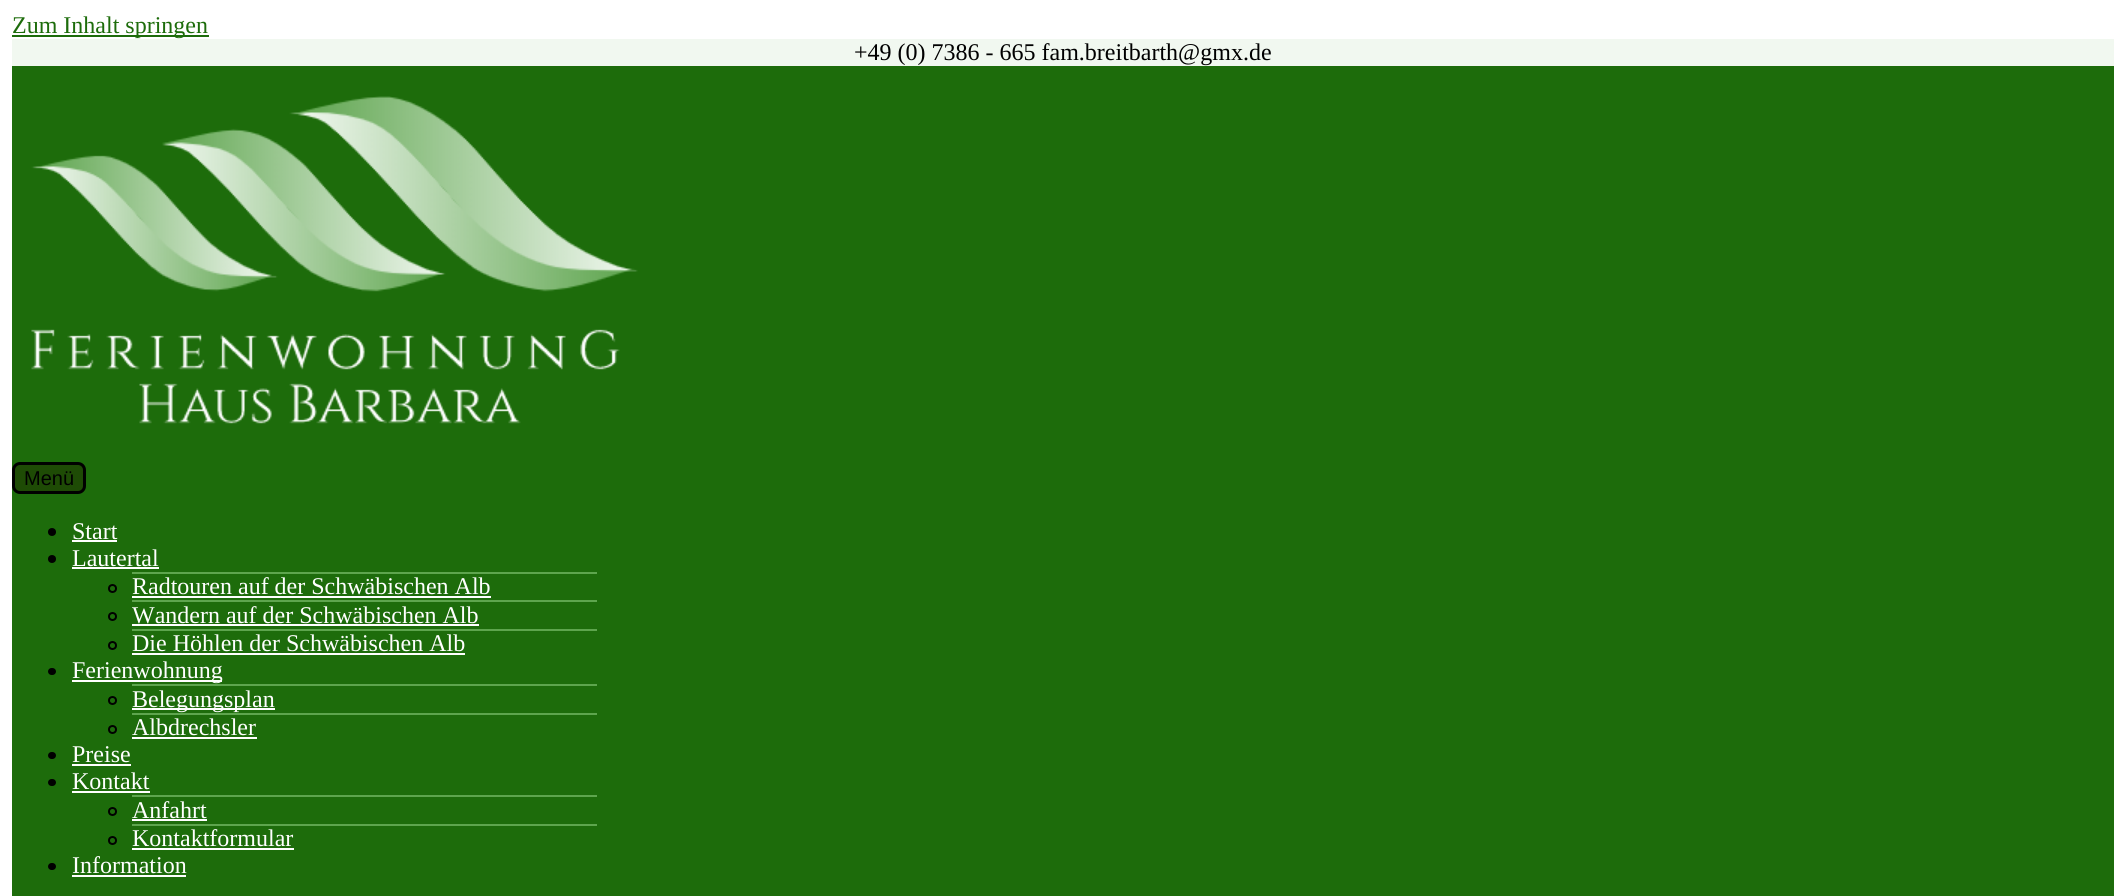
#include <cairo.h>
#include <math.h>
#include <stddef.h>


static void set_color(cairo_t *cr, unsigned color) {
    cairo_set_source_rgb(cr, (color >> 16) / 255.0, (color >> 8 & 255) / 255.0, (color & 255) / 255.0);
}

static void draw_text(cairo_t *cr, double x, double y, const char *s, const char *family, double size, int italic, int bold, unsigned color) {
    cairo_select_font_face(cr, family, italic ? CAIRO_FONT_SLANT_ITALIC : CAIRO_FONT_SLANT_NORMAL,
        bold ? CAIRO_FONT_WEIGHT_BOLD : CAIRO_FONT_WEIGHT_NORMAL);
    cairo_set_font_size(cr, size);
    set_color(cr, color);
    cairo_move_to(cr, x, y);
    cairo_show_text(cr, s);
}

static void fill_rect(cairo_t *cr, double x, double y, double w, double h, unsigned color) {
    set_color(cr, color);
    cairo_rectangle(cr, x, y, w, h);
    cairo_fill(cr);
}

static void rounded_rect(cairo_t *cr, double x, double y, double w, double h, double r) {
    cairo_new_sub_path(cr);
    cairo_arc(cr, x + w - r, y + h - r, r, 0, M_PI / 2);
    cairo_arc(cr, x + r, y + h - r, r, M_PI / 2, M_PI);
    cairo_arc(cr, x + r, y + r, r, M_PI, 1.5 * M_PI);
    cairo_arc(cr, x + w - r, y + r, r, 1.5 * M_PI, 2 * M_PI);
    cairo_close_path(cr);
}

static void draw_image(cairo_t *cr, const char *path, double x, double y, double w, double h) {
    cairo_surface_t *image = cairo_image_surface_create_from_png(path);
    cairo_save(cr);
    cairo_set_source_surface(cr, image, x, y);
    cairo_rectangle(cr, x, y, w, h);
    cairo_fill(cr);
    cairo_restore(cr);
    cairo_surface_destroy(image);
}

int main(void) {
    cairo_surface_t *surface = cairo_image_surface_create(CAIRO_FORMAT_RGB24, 2125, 896);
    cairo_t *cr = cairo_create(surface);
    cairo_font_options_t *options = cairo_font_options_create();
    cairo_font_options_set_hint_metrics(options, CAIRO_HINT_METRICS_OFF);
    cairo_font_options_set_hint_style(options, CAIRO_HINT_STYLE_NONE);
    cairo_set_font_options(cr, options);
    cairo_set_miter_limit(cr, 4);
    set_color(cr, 0xFFFFFF);
    cairo_paint(cr);
    fill_rect(cr, 12, 35, 197, 2, 0x1D6C0B);
    draw_text(cr, 12, 33, "Zum Inhalt springen", "Liberation Serif", 24, 0, 0, 0x1D6C0B);
    fill_rect(cr, 12, 39, 2102, 27, 0xF1F8F0);
    draw_text(cr, 854, 60, "+49 (0) 7386 - 665 fam.breitbarth@gmx.de", "Liberation Serif", 24, 0, 0, 0x000000);
    fill_rect(cr, 12, 66, 2102, 830, 0x1D6C0B);
    draw_image(cr, "assets/img1.png", 31, 96, 607, 328);
    set_color(cr, 0x1E4B05);
    rounded_rect(cr, 13.5, 463.5, 71, 29, 6.5);
    cairo_fill_preserve(cr);
    set_color(cr, 0x000000);
    cairo_set_line_width(cr, 3);
    cairo_stroke(cr);
    draw_text(cr, 24, 485, "Menü", "Liberation Sans", 20, 0, 0, 0x000000);
    cairo_new_path(cr);
    cairo_arc(cr, 52, 532, 4, 0, 2 * M_PI);
    cairo_fill(cr);
    draw_text(cr, 72, 539, "Start", "Liberation Serif", 24, 0, 0, 0xFFFFFF);
    fill_rect(cr, 72, 540, 45, 2, 0xFFFFFF);
    set_color(cr, 0x000000);
    cairo_new_path(cr);
    cairo_arc(cr, 52, 559, 4, 0, 2 * M_PI);
    cairo_fill(cr);
    draw_text(cr, 72, 566, "Lautertal", "Liberation Serif", 24, 0, 0, 0xFFFFFF);
    fill_rect(cr, 72, 567, 87, 2, 0xFFFFFF);
    fill_rect(cr, 132, 572, 465, 2, 0x5EA54E);
    cairo_new_path(cr);
    cairo_arc(cr, 112.5, 588.5, 3.5, 0, 2 * M_PI);
    set_color(cr, 0x000000);
    cairo_set_line_width(cr, 2);
    cairo_stroke(cr);
    draw_text(cr, 132, 594, "Radtouren auf der Schwäbischen Alb", "Liberation Serif", 24, 0, 0, 0xFFFFFF);
    fill_rect(cr, 132, 596, 359, 2, 0xFFFFFF);
    fill_rect(cr, 132, 600, 465, 2, 0x5EA54E);
    cairo_new_path(cr);
    cairo_arc(cr, 112.5, 616.5, 3.5, 0, 2 * M_PI);
    set_color(cr, 0x000000);
    cairo_stroke(cr);
    draw_text(cr, 132, 623, "Wandern auf der Schwäbischen Alb", "Liberation Serif", 24, 0, 0, 0xFFFFFF);
    fill_rect(cr, 132, 624, 347, 2, 0xFFFFFF);
    fill_rect(cr, 132, 629, 465, 2, 0x5EA54E);
    cairo_new_path(cr);
    cairo_arc(cr, 112.5, 645.5, 3.5, 0, 2 * M_PI);
    set_color(cr, 0x000000);
    cairo_stroke(cr);
    draw_text(cr, 132, 651, "Die Höhlen der Schwäbischen Alb", "Liberation Serif", 24, 0, 0, 0xFFFFFF);
    fill_rect(cr, 132, 653, 333, 2, 0xFFFFFF);
    set_color(cr, 0x000000);
    rounded_rect(cr, 48, 668, 8, 7, 3.5);
    cairo_fill(cr);
    fill_rect(cr, 72, 680, 150, 2, 0xFFFFFF);
    draw_text(cr, 72, 678, "Ferienwohnung", "Liberation Serif", 24, 0, 0, 0xFFFFFF);
    fill_rect(cr, 132, 684, 465, 2, 0x5EA54E);
    cairo_new_path(cr);
    cairo_arc(cr, 112.5, 700.5, 3.5, 0, 2 * M_PI);
    set_color(cr, 0x000000);
    cairo_stroke(cr);
    fill_rect(cr, 132, 708, 143, 2, 0xFFFFFF);
    draw_text(cr, 132, 707, "Belegungsplan", "Liberation Serif", 24, 0, 0, 0xFFFFFF);
    fill_rect(cr, 132, 713, 465, 2, 0x5EA54E);
    cairo_new_path(cr);
    cairo_arc(cr, 112.5, 729.5, 3.5, 0, 2 * M_PI);
    set_color(cr, 0x000000);
    cairo_stroke(cr);
    draw_text(cr, 132, 735, "Albdrechsler", "Liberation Serif", 24, 0, 0, 0xFFFFFF);
    fill_rect(cr, 132, 737, 125, 2, 0xFFFFFF);
    set_color(cr, 0x000000);
    rounded_rect(cr, 48, 752, 8, 7, 3.5);
    cairo_fill(cr);
    draw_text(cr, 72, 762, "Preise", "Liberation Serif", 24, 0, 0, 0xFFFFFF);
    fill_rect(cr, 72, 764, 59, 2, 0xFFFFFF);
    set_color(cr, 0x000000);
    rounded_rect(cr, 48, 779, 8, 7, 3.5);
    cairo_fill(cr);
    draw_text(cr, 72, 789, "Kontakt", "Liberation Serif", 24, 0, 0, 0xFFFFFF);
    fill_rect(cr, 72, 791, 78, 2, 0xFFFFFF);
    fill_rect(cr, 132, 795, 465, 2, 0x5EA54E);
    cairo_new_path(cr);
    cairo_arc(cr, 112.5, 811.5, 3.5, 0, 2 * M_PI);
    set_color(cr, 0x000000);
    cairo_stroke(cr);
    draw_text(cr, 132, 818, "Anfahrt", "Liberation Serif", 24, 0, 0, 0xFFFFFF);
    fill_rect(cr, 132, 819, 75, 2, 0xFFFFFF);
    fill_rect(cr, 132, 824, 465, 2, 0x5EA54E);
    cairo_new_path(cr);
    cairo_arc(cr, 112.5, 840.5, 3.5, 0, 2 * M_PI);
    set_color(cr, 0x000000);
    cairo_stroke(cr);
    draw_text(cr, 132, 846, "Kontaktformular", "Liberation Serif", 24, 0, 0, 0xFFFFFF);
    fill_rect(cr, 132, 848, 162, 2, 0xFFFFFF);
    set_color(cr, 0x000000);
    rounded_rect(cr, 48, 863, 8, 7, 3.5);
    cairo_fill(cr);
    draw_text(cr, 72, 873, "Information", "Liberation Serif", 24, 0, 0, 0xFFFFFF);
    fill_rect(cr, 72, 875, 114, 2, 0xFFFFFF);
    cairo_surface_write_to_png(surface, "output.png");
    cairo_font_options_destroy(options);
    cairo_destroy(cr);
    cairo_surface_destroy(surface);
    return 0;
}
